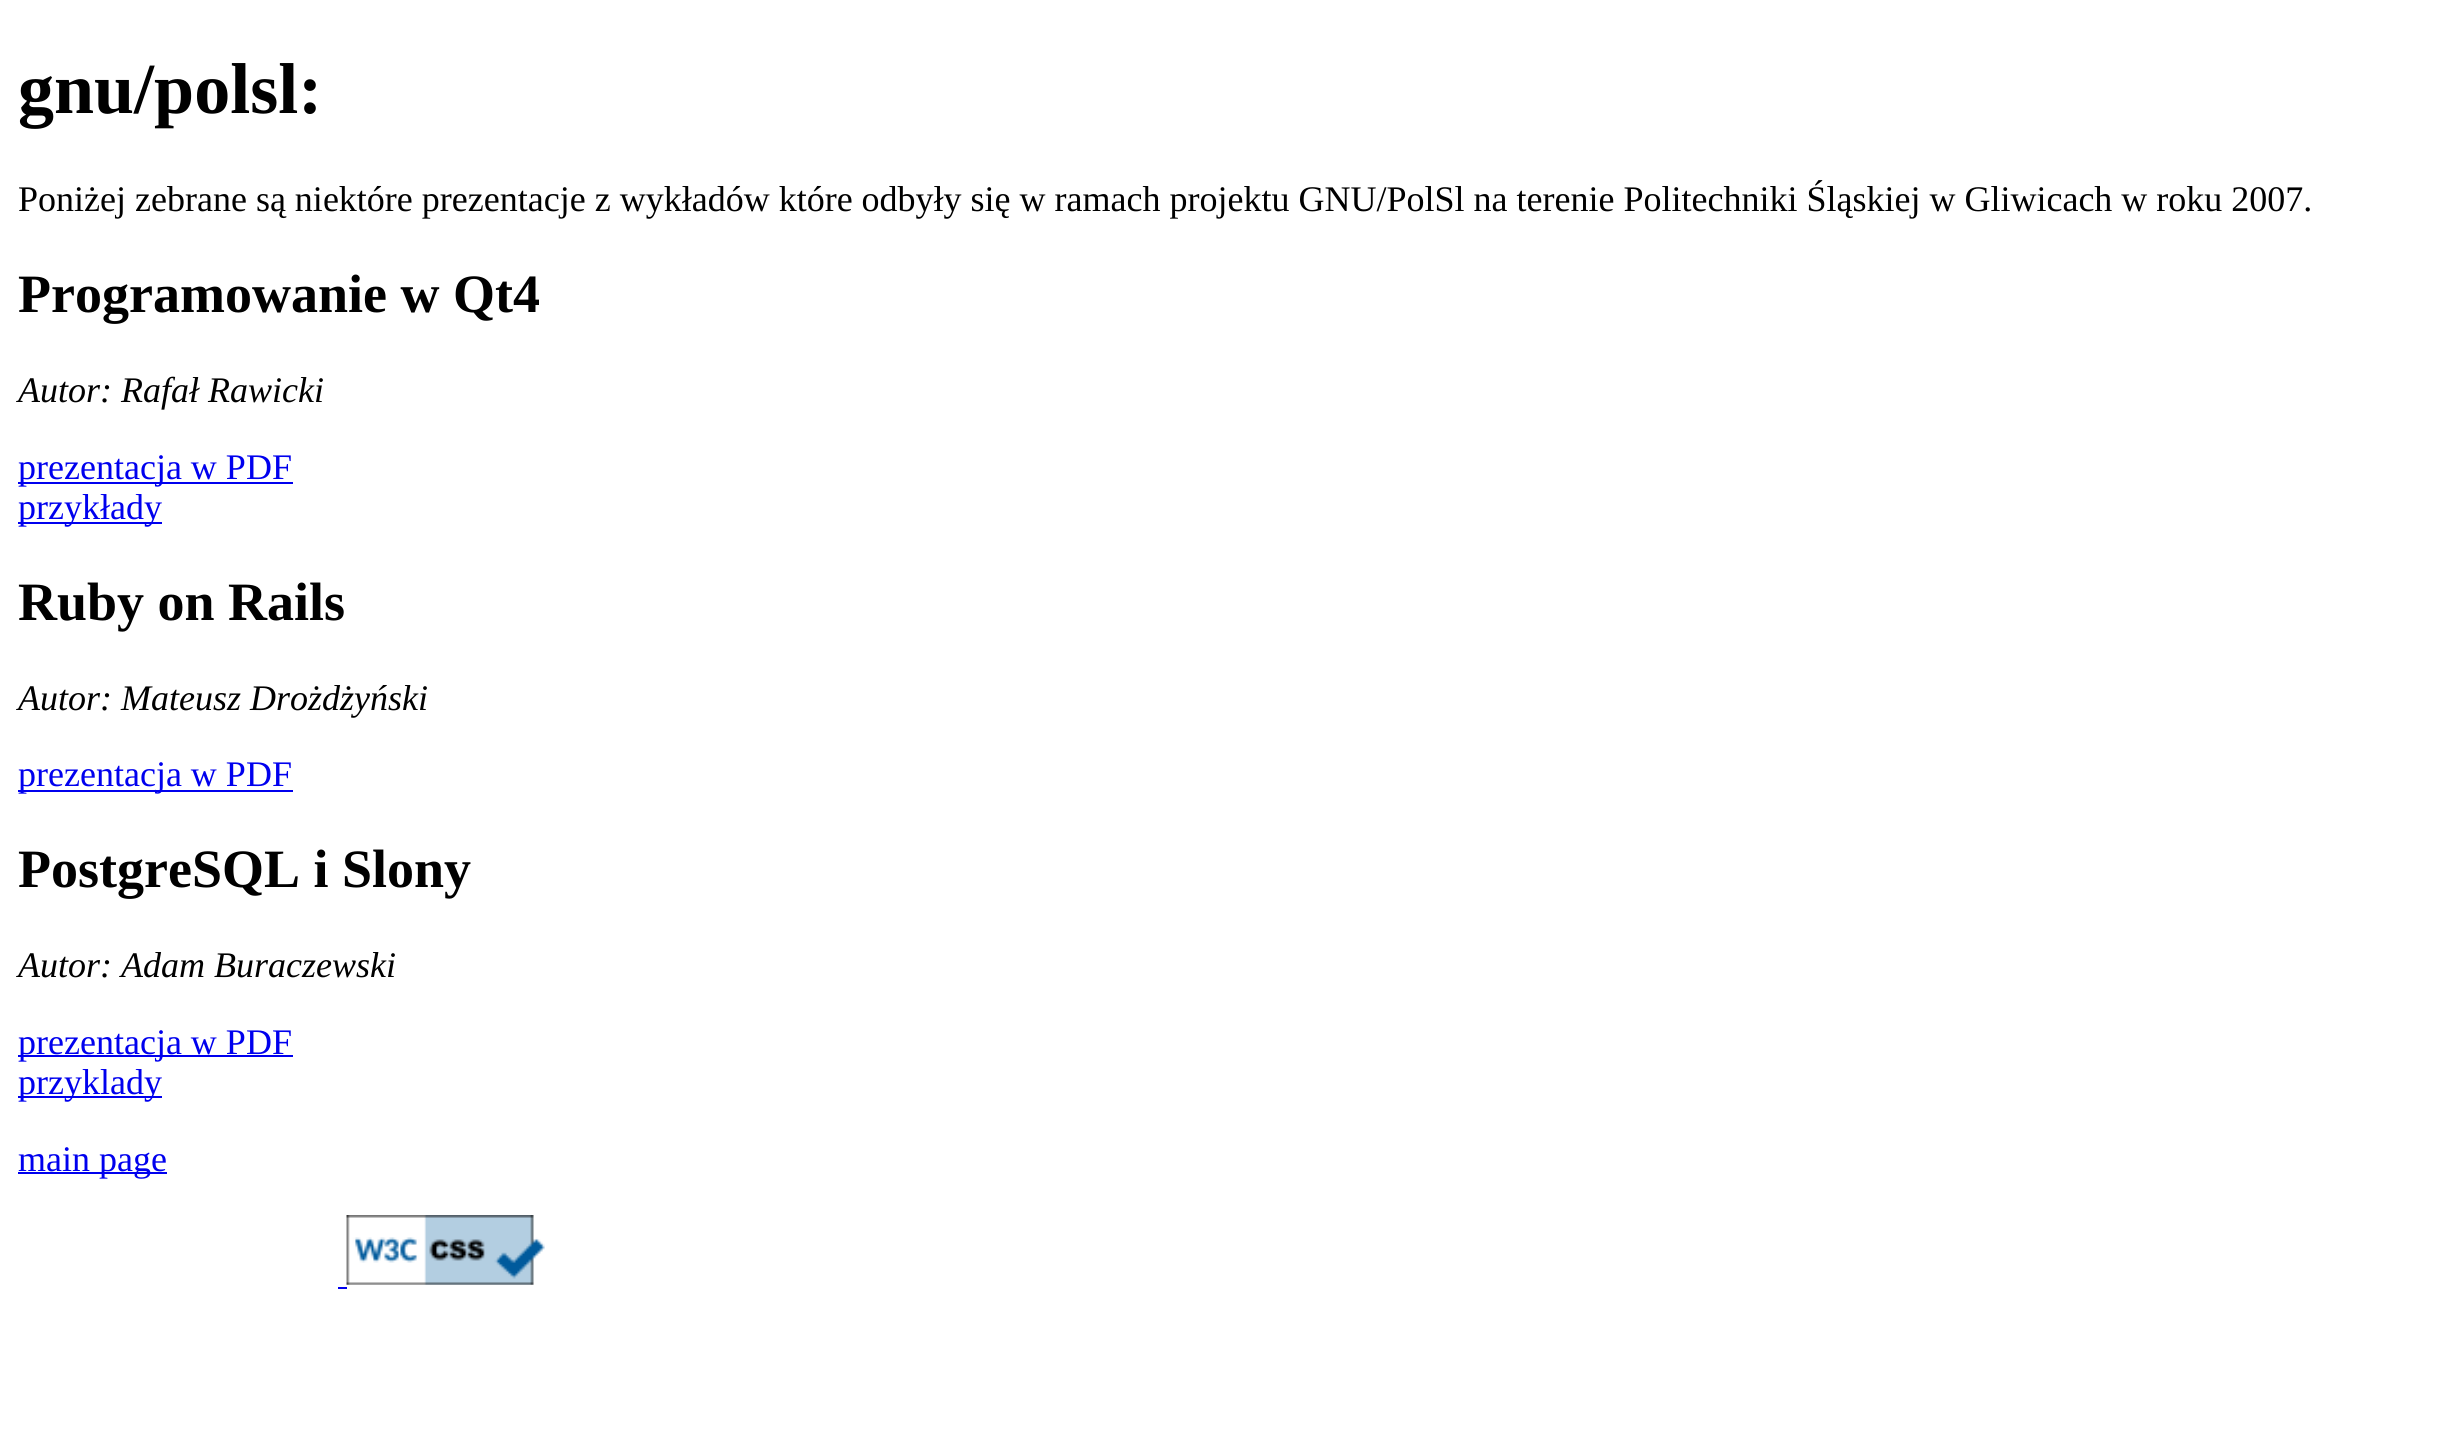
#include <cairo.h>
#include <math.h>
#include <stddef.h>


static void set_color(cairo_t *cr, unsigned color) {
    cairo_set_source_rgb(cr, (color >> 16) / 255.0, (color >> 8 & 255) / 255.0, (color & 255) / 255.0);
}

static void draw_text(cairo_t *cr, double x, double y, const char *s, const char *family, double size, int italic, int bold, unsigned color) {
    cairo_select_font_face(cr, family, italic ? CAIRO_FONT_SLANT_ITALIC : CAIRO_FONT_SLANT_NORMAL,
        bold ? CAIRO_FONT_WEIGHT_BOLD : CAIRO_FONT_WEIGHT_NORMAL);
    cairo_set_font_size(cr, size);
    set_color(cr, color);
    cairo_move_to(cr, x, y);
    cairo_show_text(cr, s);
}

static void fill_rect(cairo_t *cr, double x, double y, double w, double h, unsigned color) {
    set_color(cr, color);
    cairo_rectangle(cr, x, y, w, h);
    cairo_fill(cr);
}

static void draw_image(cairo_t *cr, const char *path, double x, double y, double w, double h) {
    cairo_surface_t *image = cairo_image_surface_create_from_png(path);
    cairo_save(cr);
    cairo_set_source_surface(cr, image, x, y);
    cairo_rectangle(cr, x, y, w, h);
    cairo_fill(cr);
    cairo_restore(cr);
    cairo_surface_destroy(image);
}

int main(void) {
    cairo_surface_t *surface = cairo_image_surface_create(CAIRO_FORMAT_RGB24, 2443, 1436);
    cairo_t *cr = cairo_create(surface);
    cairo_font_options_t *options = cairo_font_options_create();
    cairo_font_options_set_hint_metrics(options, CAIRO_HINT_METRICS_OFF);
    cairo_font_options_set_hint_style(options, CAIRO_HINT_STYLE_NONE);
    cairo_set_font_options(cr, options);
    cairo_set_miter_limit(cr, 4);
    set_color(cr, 0xFFFFFF);
    cairo_paint(cr);
    draw_text(cr, 18, 113, "gnu/polsl:", "Liberation Serif", 72, 0, 1, 0x000000);
    draw_text(cr, 18, 211, "Poniżej zebrane są niektóre prezentacje z wykładów które odbyły się w ramach projektu GNU/PolSl na terenie Politechniki Śląskiej w Gliwicach w roku 2007.", "Liberation Serif", 36, 0, 0, 0x000000);
    draw_text(cr, 18, 312, "Programowanie w Qt4", "Liberation Serif", 54, 0, 1, 0x000000);
    draw_text(cr, 18, 402, "Autor: Rafał Rawicki", "Liberation Serif", 36, 1, 0, 0x000000);
    fill_rect(cr, 18, 482, 275, 2, 0x0000EE);
    draw_text(cr, 18, 479, "prezentacja w PDF", "Liberation Serif", 36, 0, 0, 0x0000EE);
    fill_rect(cr, 18, 522, 144, 2, 0x0000EE);
    draw_text(cr, 18, 519, "przykłady", "Liberation Serif", 36, 0, 0, 0x0000EE);
    draw_text(cr, 18, 620, "Ruby on Rails", "Liberation Serif", 54, 0, 1, 0x000000);
    draw_text(cr, 18, 710, "Autor: Mateusz Drożdżyński", "Liberation Serif", 36, 1, 0, 0x000000);
    fill_rect(cr, 18, 790, 275, 2, 0x0000EE);
    draw_text(cr, 18, 786, "prezentacja w PDF", "Liberation Serif", 36, 0, 0, 0x0000EE);
    draw_text(cr, 18, 887, "PostgreSQL i Slony", "Liberation Serif", 54, 0, 1, 0x000000);
    draw_text(cr, 18, 977, "Autor: Adam Buraczewski", "Liberation Serif", 36, 1, 0, 0x000000);
    fill_rect(cr, 18, 1055, 275, 2, 0x0000EE);
    draw_text(cr, 18, 1054, "prezentacja w PDF", "Liberation Serif", 36, 0, 0, 0x0000EE);
    fill_rect(cr, 18, 1096, 144, 2, 0x0000EE);
    draw_text(cr, 18, 1094, "przyklady", "Liberation Serif", 36, 0, 0, 0x0000EE);
    fill_rect(cr, 18, 1172, 149, 2, 0x0000EE);
    draw_text(cr, 18, 1171, "main page", "Liberation Serif", 36, 0, 0, 0x0000EE);
    draw_image(cr, "assets/img1.png", 346, 1215, 199, 70);
    fill_rect(cr, 338, 1287, 9, 2, 0x0000EE);
    cairo_surface_write_to_png(surface, "output.png");
    cairo_font_options_destroy(options);
    cairo_destroy(cr);
    cairo_surface_destroy(surface);
    return 0;
}
